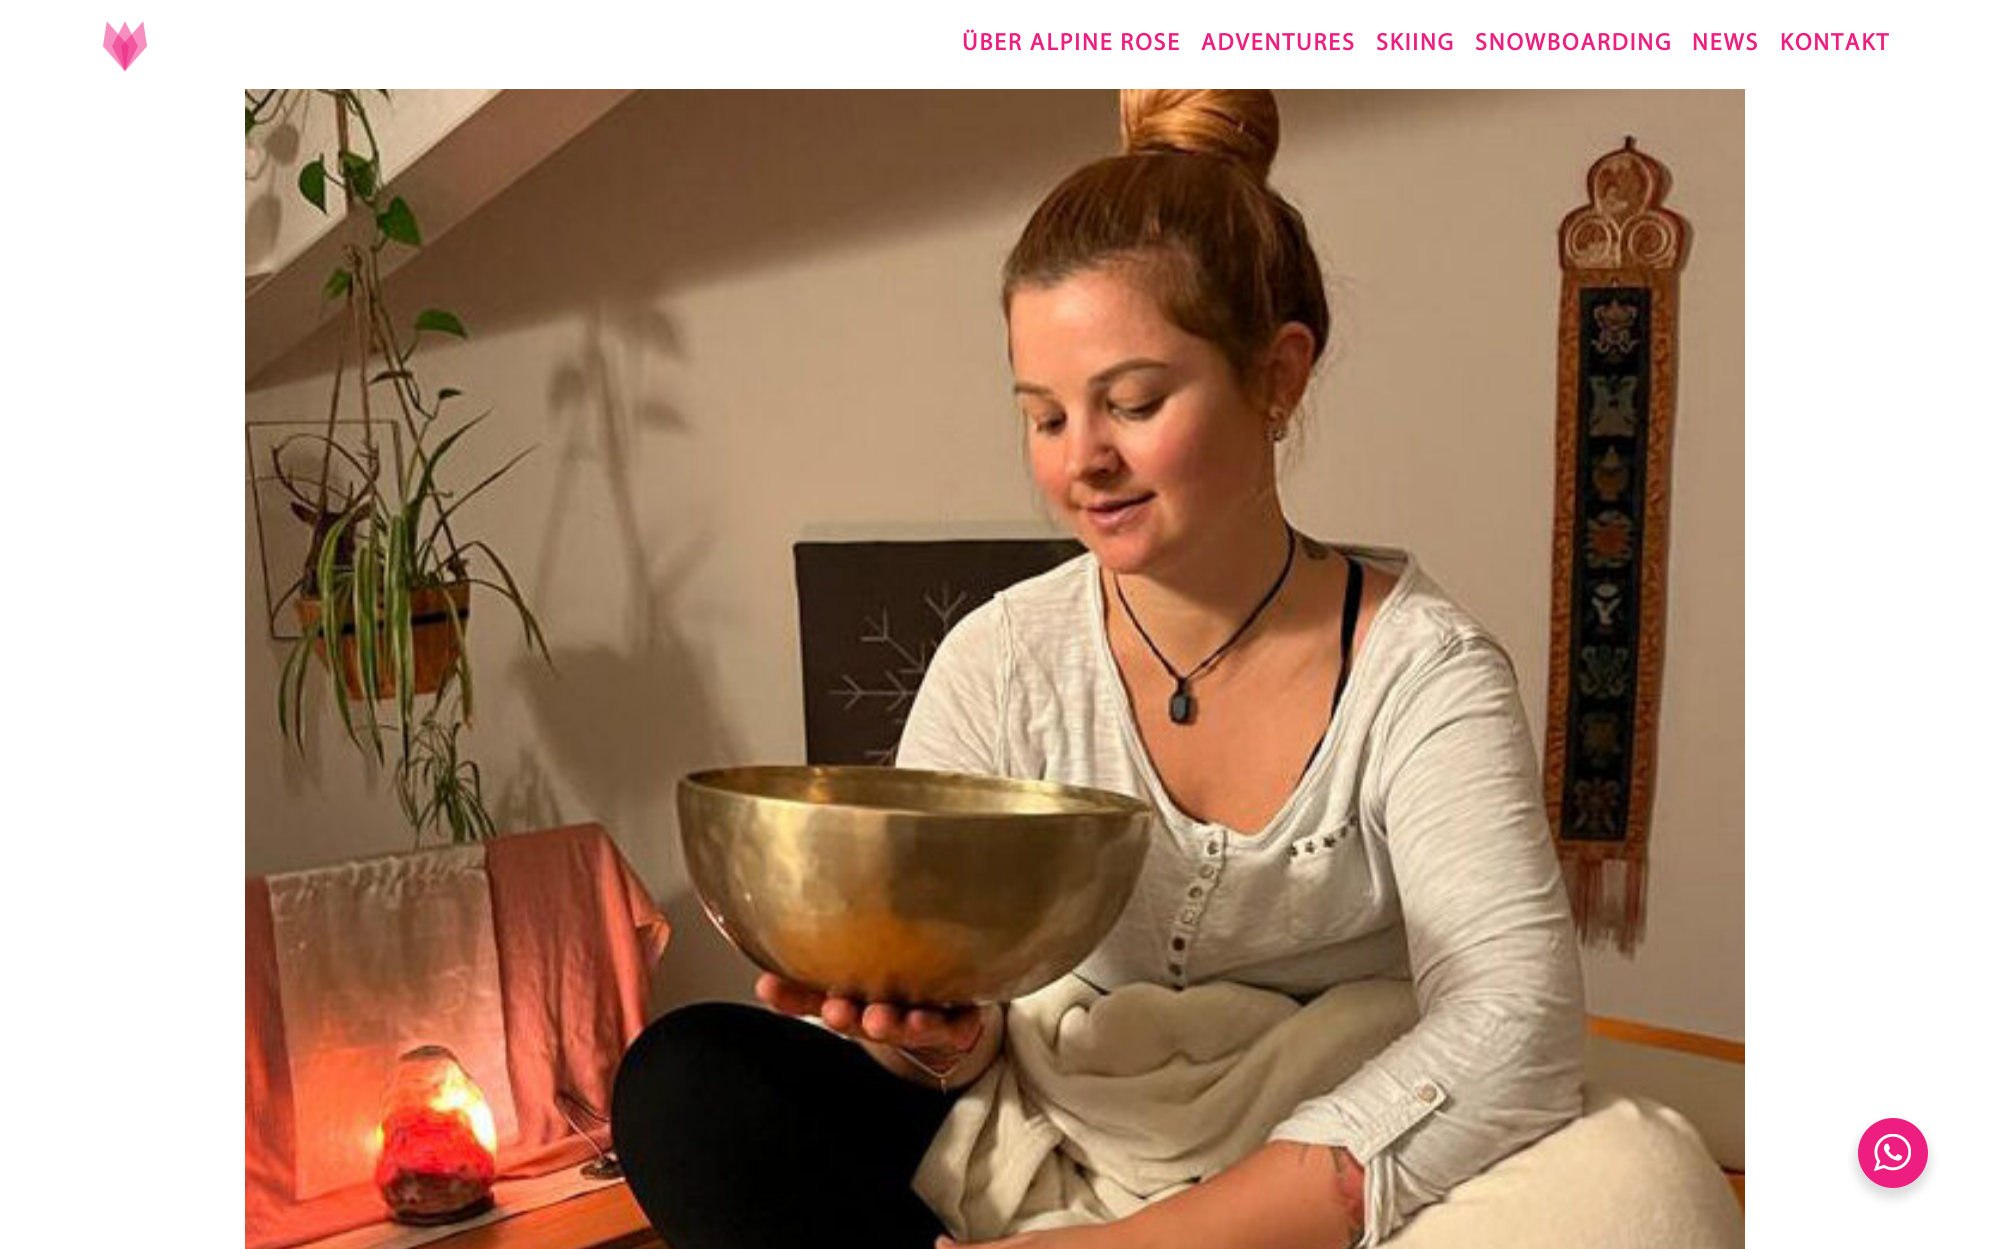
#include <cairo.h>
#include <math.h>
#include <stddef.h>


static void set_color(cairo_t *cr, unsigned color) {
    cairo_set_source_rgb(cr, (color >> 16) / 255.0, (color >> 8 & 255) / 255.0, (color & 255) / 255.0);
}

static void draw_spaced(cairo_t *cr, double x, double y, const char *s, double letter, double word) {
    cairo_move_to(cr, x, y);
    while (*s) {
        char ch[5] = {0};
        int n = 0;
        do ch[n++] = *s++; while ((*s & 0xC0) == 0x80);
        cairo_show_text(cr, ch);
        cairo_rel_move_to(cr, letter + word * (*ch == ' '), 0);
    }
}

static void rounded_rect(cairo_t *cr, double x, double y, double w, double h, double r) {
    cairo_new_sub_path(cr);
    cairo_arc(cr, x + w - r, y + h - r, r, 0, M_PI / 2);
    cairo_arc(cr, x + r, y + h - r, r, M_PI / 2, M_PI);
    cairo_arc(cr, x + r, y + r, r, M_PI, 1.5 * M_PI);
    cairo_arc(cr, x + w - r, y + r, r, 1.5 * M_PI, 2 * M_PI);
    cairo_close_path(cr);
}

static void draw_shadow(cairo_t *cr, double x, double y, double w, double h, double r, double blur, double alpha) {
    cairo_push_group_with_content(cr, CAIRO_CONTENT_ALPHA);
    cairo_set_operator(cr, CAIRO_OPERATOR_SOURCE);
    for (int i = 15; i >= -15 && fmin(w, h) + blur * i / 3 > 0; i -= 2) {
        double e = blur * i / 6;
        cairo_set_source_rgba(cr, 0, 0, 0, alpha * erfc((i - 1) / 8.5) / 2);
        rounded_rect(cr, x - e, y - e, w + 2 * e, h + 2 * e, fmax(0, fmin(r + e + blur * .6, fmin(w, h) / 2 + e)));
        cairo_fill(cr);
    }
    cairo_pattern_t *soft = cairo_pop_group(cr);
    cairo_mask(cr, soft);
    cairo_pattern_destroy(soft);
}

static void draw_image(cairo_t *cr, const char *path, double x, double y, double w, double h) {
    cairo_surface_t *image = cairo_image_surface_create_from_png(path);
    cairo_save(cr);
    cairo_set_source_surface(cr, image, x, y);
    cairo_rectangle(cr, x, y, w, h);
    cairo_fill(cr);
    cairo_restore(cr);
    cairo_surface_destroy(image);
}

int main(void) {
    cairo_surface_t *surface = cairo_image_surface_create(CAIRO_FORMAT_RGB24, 1990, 1249);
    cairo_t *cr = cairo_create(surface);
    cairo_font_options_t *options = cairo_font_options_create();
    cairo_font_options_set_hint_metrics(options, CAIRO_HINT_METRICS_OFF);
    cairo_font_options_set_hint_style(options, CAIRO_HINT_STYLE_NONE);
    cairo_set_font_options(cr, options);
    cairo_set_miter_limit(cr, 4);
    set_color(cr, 0xFFFFFF);
    cairo_paint(cr);
    draw_image(cr, "assets/img1.png", 103, 21, 44, 51);
    cairo_select_font_face(cr, "Myriad", CAIRO_FONT_SLANT_NORMAL, CAIRO_FONT_WEIGHT_BOLD);
    cairo_set_font_size(cr, 24);
    set_color(cr, 0xED1E7F);
    draw_spaced(cr, 962, 50, "ÜBER ALPINE ROSE", 1.9, 0);
    draw_spaced(cr, 1201, 50, "ADVENTURES", 1.9, 0);
    draw_spaced(cr, 1376, 50, "SKIING", 1.9, 0);
    draw_spaced(cr, 1475, 50, "SNOWBOARDING", 1.9, 0);
    draw_spaced(cr, 1692, 50, "NEWS", 1.9, 0);
    draw_spaced(cr, 1780, 50, "KONTAKT", 1.9, 0);
    draw_image(cr, "assets/img2.png", 245, 89, 1500, 1160);
    set_color(cr, 0x000000);
    draw_shadow(cr, 1855, 1123, 75, 75, 37.5, 5, 0.14);
    set_color(cr, 0xED1E7F);
    cairo_arc(cr, 1893, 1153, 35, 0, 2 * M_PI);
    cairo_fill(cr);
    draw_image(cr, "assets/img3.png", 1874, 1134, 37, 37);
    cairo_surface_write_to_png(surface, "output.png");
    cairo_font_options_destroy(options);
    cairo_destroy(cr);
    cairo_surface_destroy(surface);
    return 0;
}
